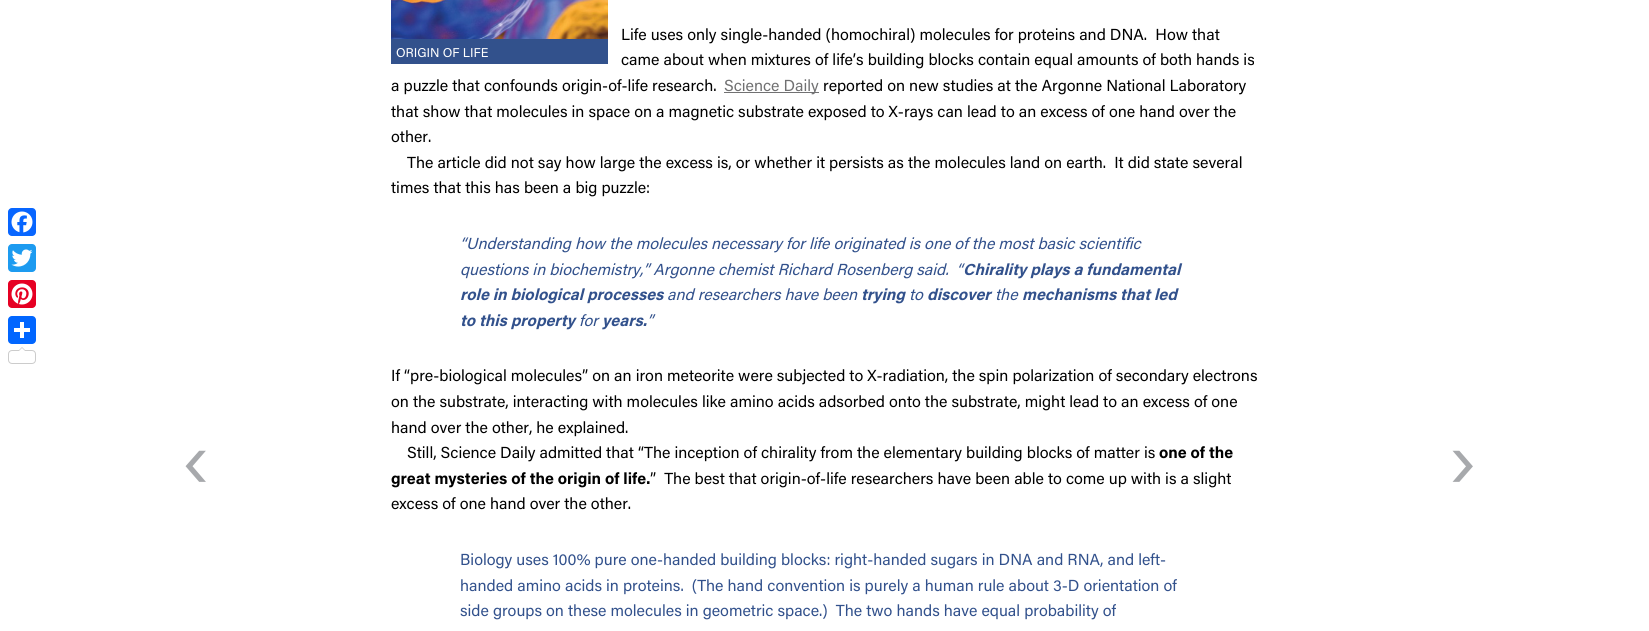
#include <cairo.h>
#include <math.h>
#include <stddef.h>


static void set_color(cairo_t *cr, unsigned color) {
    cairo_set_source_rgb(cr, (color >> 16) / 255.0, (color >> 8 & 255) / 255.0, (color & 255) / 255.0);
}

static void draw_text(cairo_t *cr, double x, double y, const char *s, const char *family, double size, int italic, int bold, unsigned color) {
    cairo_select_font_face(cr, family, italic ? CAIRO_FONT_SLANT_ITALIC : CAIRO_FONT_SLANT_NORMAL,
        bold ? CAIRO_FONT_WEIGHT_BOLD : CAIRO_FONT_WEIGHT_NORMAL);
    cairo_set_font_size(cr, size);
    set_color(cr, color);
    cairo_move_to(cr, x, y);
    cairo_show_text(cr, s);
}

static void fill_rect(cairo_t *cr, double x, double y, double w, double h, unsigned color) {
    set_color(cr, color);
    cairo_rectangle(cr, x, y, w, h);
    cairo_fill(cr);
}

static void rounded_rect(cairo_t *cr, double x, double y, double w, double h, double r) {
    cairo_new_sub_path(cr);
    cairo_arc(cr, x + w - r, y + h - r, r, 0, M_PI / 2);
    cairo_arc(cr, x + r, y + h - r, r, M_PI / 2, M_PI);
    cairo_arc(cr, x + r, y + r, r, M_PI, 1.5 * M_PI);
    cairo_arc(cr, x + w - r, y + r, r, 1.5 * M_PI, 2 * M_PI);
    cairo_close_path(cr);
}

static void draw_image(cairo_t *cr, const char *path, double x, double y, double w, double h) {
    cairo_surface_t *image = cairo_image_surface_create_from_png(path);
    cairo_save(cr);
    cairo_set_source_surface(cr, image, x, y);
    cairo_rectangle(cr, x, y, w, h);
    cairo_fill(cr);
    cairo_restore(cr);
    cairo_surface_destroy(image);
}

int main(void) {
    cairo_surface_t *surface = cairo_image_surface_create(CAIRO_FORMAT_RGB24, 1649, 631);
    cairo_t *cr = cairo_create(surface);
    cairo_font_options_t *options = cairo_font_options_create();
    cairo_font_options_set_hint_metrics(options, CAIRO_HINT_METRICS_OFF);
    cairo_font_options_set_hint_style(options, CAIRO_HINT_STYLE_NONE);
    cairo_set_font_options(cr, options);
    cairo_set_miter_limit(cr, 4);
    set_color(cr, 0xFFFFFF);
    cairo_paint(cr);
    set_color(cr, 0x0866FF);
    rounded_rect(cr, 8, 208, 28, 28, 4);
    cairo_fill(cr);
    draw_image(cr, "assets/img1.png", 11, 211, 22, 22);
    set_color(cr, 0x1D9BF0);
    rounded_rect(cr, 8, 244, 28, 28, 4);
    cairo_fill(cr);
    draw_image(cr, "assets/img2.png", 11, 249, 22, 18);
    set_color(cr, 0xE60023);
    rounded_rect(cr, 8, 280, 28, 28, 4);
    cairo_fill(cr);
    draw_image(cr, "assets/img3.png", 11, 283, 22, 22);
    set_color(cr, 0x0166FF);
    rounded_rect(cr, 8, 316, 28, 28, 4);
    cairo_fill(cr);
    fill_rect(cr, 20, 322, 4, 16, 0xFFFFFF);
    fill_rect(cr, 14, 328, 16, 4, 0xFFFFFF);
    rounded_rect(cr, 8.5, 350.5, 27, 13, 3.5);
    set_color(cr, 0xCCCCCC);
    cairo_set_line_width(cr, 1);
    cairo_stroke(cr);
    cairo_new_path(cr);
    cairo_move_to(cr, 26, 351);
    cairo_line_to(cr, 18, 351);
    cairo_line_to(cr, 22, 347);
    cairo_close_path(cr);
    cairo_fill(cr);
    set_color(cr, 0xFFFFFF);
    cairo_new_path(cr);
    cairo_move_to(cr, 26, 352);
    cairo_line_to(cr, 18, 352);
    cairo_line_to(cr, 22, 348);
    cairo_close_path(cr);
    cairo_fill(cr);
    draw_text(cr, 181, 487, "‹", "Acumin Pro", 80, 0, 0, 0xA7A9AC);
    draw_text(cr, 621, 40, "Life uses only single-handed (homochiral) molecules for proteins and DNA.  How that", "Acumin Pro", 16, 0, 0, 0x000000);
    draw_text(cr, 621, 65, "came about when mixtures of life’s building blocks contain equal amounts of both hands is", "Acumin Pro", 16, 0, 0, 0x000000);
    draw_text(cr, 391, 91, "a puzzle that confounds origin-of-life research.", "Acumin Pro", 16, 0, 0, 0x000000);
    fill_rect(cr, 724, 92, 95, 1, 0x717172);
    draw_text(cr, 724, 91, "Science Daily", "Acumin Pro", 16, 0, 0, 0x717172);
    draw_text(cr, 823, 91, "reported on new studies at the Argonne National Laboratory", "Acumin Pro", 16, 0, 0, 0x000000);
    draw_text(cr, 391, 117, "that show that molecules in space on a magnetic substrate exposed to X-rays can lead to an excess of one hand over the", "Acumin Pro", 16, 0, 0, 0x000000);
    draw_text(cr, 391, 142, "other.", "Acumin Pro", 16, 0, 0, 0x000000);
    draw_text(cr, 407, 168, "The article did not say how large the excess is, or whether it persists as the molecules land on earth.  It did state several", "Acumin Pro", 16, 0, 0, 0x000000);
    draw_text(cr, 391, 193, "times that this has been a big puzzle:", "Acumin Pro", 16, 0, 0, 0x000000);
    draw_text(cr, 460, 249, "“Understanding how the molecules necessary for life originated is one of the most basic scientific", "Acumin Pro", 16, 1, 0, 0x32518C);
    draw_text(cr, 460, 275, "questions in biochemistry,” Argonne chemist Richard Rosenberg said.  “", "Acumin Pro", 16, 1, 0, 0x32518C);
    draw_text(cr, 963, 275, "Chirality plays a fundamental", "Acumin Pro", 16, 1, 1, 0x32518C);
    draw_text(cr, 460, 300, "role in biological processes", "Acumin Pro", 16, 1, 1, 0x32518C);
    draw_text(cr, 667, 300, "and researchers have been", "Acumin Pro", 16, 1, 0, 0x32518C);
    draw_text(cr, 861, 300, "trying", "Acumin Pro", 16, 1, 1, 0x32518C);
    draw_text(cr, 909, 300, "to", "Acumin Pro", 16, 1, 0, 0x32518C);
    draw_text(cr, 927, 300, "discover", "Acumin Pro", 16, 1, 1, 0x32518C);
    draw_text(cr, 995, 300, "the", "Acumin Pro", 16, 1, 0, 0x32518C);
    draw_text(cr, 1022, 300, "mechanisms that led", "Acumin Pro", 16, 1, 1, 0x32518C);
    draw_text(cr, 460, 326, "to this property", "Acumin Pro", 16, 1, 1, 0x32518C);
    draw_text(cr, 579, 326, "for", "Acumin Pro", 16, 1, 0, 0x32518C);
    draw_text(cr, 647, 326, "”", "Acumin Pro", 16, 1, 0, 0x32518C);
    draw_text(cr, 602, 326, "years.", "Acumin Pro", 16, 1, 1, 0x32518C);
    draw_text(cr, 391, 381, "If “pre-biological molecules” on an iron meteorite were subjected to X-radiation, the spin polarization of secondary electrons", "Acumin Pro", 16, 0, 0, 0x000000);
    draw_text(cr, 391, 407, "on the substrate, interacting with molecules like amino acids adsorbed onto the substrate, might lead to an excess of one", "Acumin Pro", 16, 0, 0, 0x000000);
    draw_text(cr, 391, 433, "hand over the other, he explained.", "Acumin Pro", 16, 0, 0, 0x000000);
    draw_text(cr, 407, 458, "Still, Science Daily admitted that “The inception of chirality from the elementary building blocks of matter is", "Acumin Pro", 16, 0, 0, 0x000000);
    draw_text(cr, 1159, 458, "one of the", "Acumin Pro", 16, 0, 1, 0x000000);
    draw_text(cr, 391, 484, "great mysteries of the origin of life.", "Acumin Pro", 16, 0, 1, 0x000000);
    draw_text(cr, 650, 484, "”  The best that origin-of-life researchers have been able to come up with is a slight", "Acumin Pro", 16, 0, 0, 0x000000);
    draw_text(cr, 391, 509, "excess of one hand over the other.", "Acumin Pro", 16, 0, 0, 0x000000);
    draw_text(cr, 460, 565, "Biology uses 100% pure one-handed building blocks: right-handed sugars in DNA and RNA, and left-", "Acumin Pro", 16, 0, 0, 0x32518C);
    draw_text(cr, 460, 591, "handed amino acids in proteins.  (The hand convention is purely a human rule about 3-D orientation of", "Acumin Pro", 16, 0, 0, 0x32518C);
    draw_text(cr, 460, 616, "side groups on these molecules in geometric space.)  The two hands have equal probability of", "Acumin Pro", 16, 0, 0, 0x32518C);
    draw_image(cr, "assets/img4.png", 391, 0, 217, 39);
    fill_rect(cr, 391, 39, 217, 25, 0x32518C);
    draw_text(cr, 396, 57, "ORIGIN OF LIFE", "Acumin Pro", 12.75, 0, 0, 0xFFFFFF);
    draw_text(cr, 1448, 487, "›", "Acumin Pro", 80, 0, 0, 0xA7A9AC);
    cairo_surface_write_to_png(surface, "output.png");
    cairo_font_options_destroy(options);
    cairo_destroy(cr);
    cairo_surface_destroy(surface);
    return 0;
}
